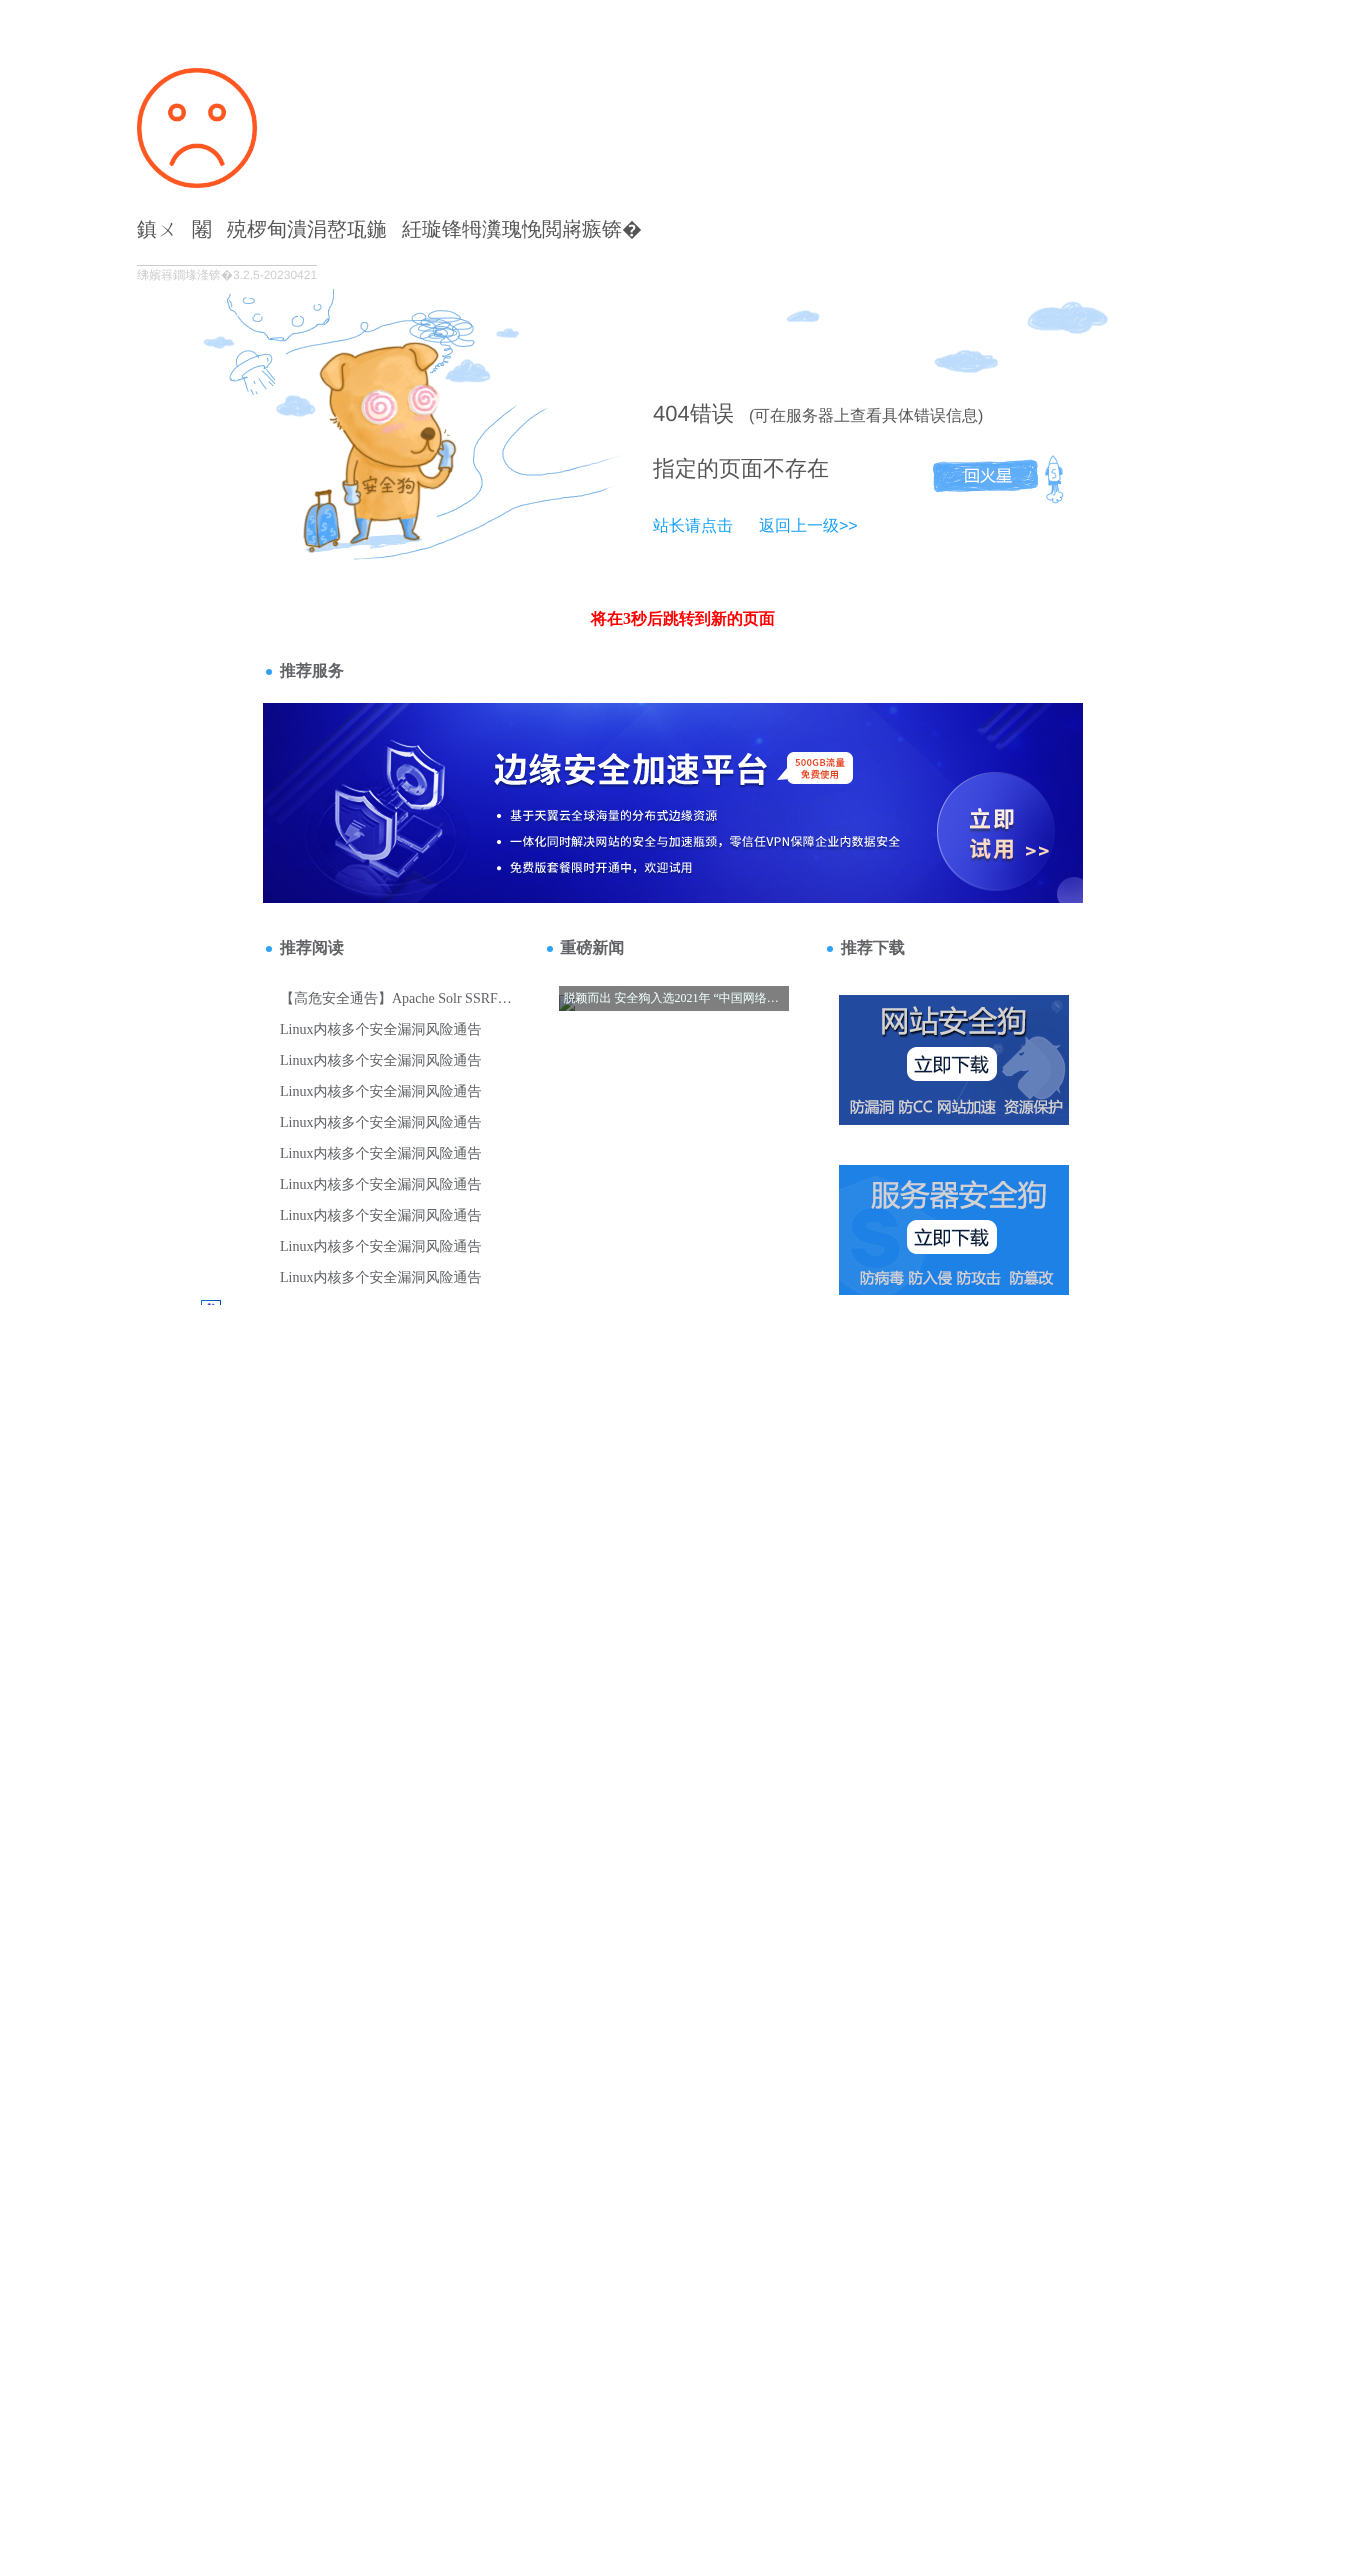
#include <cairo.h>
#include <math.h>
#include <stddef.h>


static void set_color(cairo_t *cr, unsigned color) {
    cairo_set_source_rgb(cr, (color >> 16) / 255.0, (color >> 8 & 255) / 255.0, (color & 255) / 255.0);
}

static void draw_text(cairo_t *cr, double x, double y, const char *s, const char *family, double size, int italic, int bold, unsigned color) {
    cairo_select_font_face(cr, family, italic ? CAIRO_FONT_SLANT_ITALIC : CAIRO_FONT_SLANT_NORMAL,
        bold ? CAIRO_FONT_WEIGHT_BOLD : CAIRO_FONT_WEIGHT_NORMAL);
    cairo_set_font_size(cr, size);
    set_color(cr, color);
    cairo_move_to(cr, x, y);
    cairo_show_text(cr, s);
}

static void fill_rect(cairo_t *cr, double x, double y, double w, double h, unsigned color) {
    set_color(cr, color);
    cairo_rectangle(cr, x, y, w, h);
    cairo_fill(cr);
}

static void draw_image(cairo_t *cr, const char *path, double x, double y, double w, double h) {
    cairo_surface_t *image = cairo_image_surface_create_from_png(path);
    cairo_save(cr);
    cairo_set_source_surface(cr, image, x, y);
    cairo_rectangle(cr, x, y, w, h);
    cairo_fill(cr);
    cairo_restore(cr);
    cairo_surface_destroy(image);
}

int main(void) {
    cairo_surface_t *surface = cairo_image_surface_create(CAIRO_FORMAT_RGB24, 1366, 2568);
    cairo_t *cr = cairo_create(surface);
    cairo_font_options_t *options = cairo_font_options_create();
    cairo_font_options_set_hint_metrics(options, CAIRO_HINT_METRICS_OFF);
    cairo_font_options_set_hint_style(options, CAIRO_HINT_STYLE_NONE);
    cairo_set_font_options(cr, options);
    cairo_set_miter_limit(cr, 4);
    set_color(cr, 0xFFFFFF);
    cairo_paint(cr);
    draw_image(cr, "assets/img1.png", 137, 68, 120, 120);
    draw_text(cr, 137, 236, "鎮ㄨ", "WenQuanYi Zen Hei Medium", 20, 0, 0, 0x555555);
    draw_text(cr, 192, 236, "闂", "WenQuanYi Zen Hei Medium", 20, 0, 0, 0x555555);
    draw_text(cr, 227, 236, "殑椤甸潰涓嶅瓨鍦", "WenQuanYi Zen Hei Medium", 20, 0, 0, 0x555555);
    draw_text(cr, 402, 236, "紝璇锋牳瀵瑰悗閲嶈瘯锛", "WenQuanYi Zen Hei Medium", 20, 0, 0, 0x555555);
    draw_text(cr, 622, 236, "�", "Noto Sans", 20, 0, 0, 0x555555);
    draw_text(cr, 137, 279, "绋嬪簭鐗堟湰锛", "WenQuanYi Zen Hei Medium", 12, 0, 0, 0xCCCCCC);
    fill_rect(cr, 137, 265, 180, 1, 0xCCCCCC);
    draw_text(cr, 221, 279, "�", "Noto Sans", 12, 0, 0, 0xCCCCCC);
    draw_text(cr, 233, 279, "3.2.5-20230421", "Liberation Sans", 12, 0, 0, 0xCCCCCC);
    draw_image(cr, "assets/img2.png", 203, 289, 905, 271);
    draw_text(cr, 653, 421, "404", "Liberation Sans", 22, 0, 0, 0x555555);
    draw_text(cr, 690, 421, "错误", "WenQuanYi Zen Hei Medium", 22, 0, 0, 0x555555);
    draw_text(cr, 749, 421, "(", "Liberation Sans", 16, 0, 0, 0x555555);
    draw_text(cr, 754, 421, "可在服务器上查看具体错误信息", "WenQuanYi Zen Hei Medium", 16, 0, 0, 0x555555);
    draw_text(cr, 978, 421, ")", "Liberation Sans", 16, 0, 0, 0x555555);
    draw_text(cr, 653, 476, "指定的页面不存在", "WenQuanYi Zen Hei Medium", 22, 0, 0, 0x555555);
    draw_text(cr, 653, 531, "站长请点击", "WenQuanYi Zen Hei Medium", 16, 0, 0, 0x139FF8);
    draw_text(cr, 759, 531, "返回上一级", "WenQuanYi Zen Hei Medium", 16, 0, 0, 0x139FF8);
    draw_text(cr, 839, 531, ">>", "Liberation Sans", 16, 0, 0, 0x139FF8);
    draw_image(cr, "assets/img3.png", 201, 610, 882, 695);
    cairo_surface_write_to_png(surface, "output.png");
    cairo_font_options_destroy(options);
    cairo_destroy(cr);
    cairo_surface_destroy(surface);
    return 0;
}
